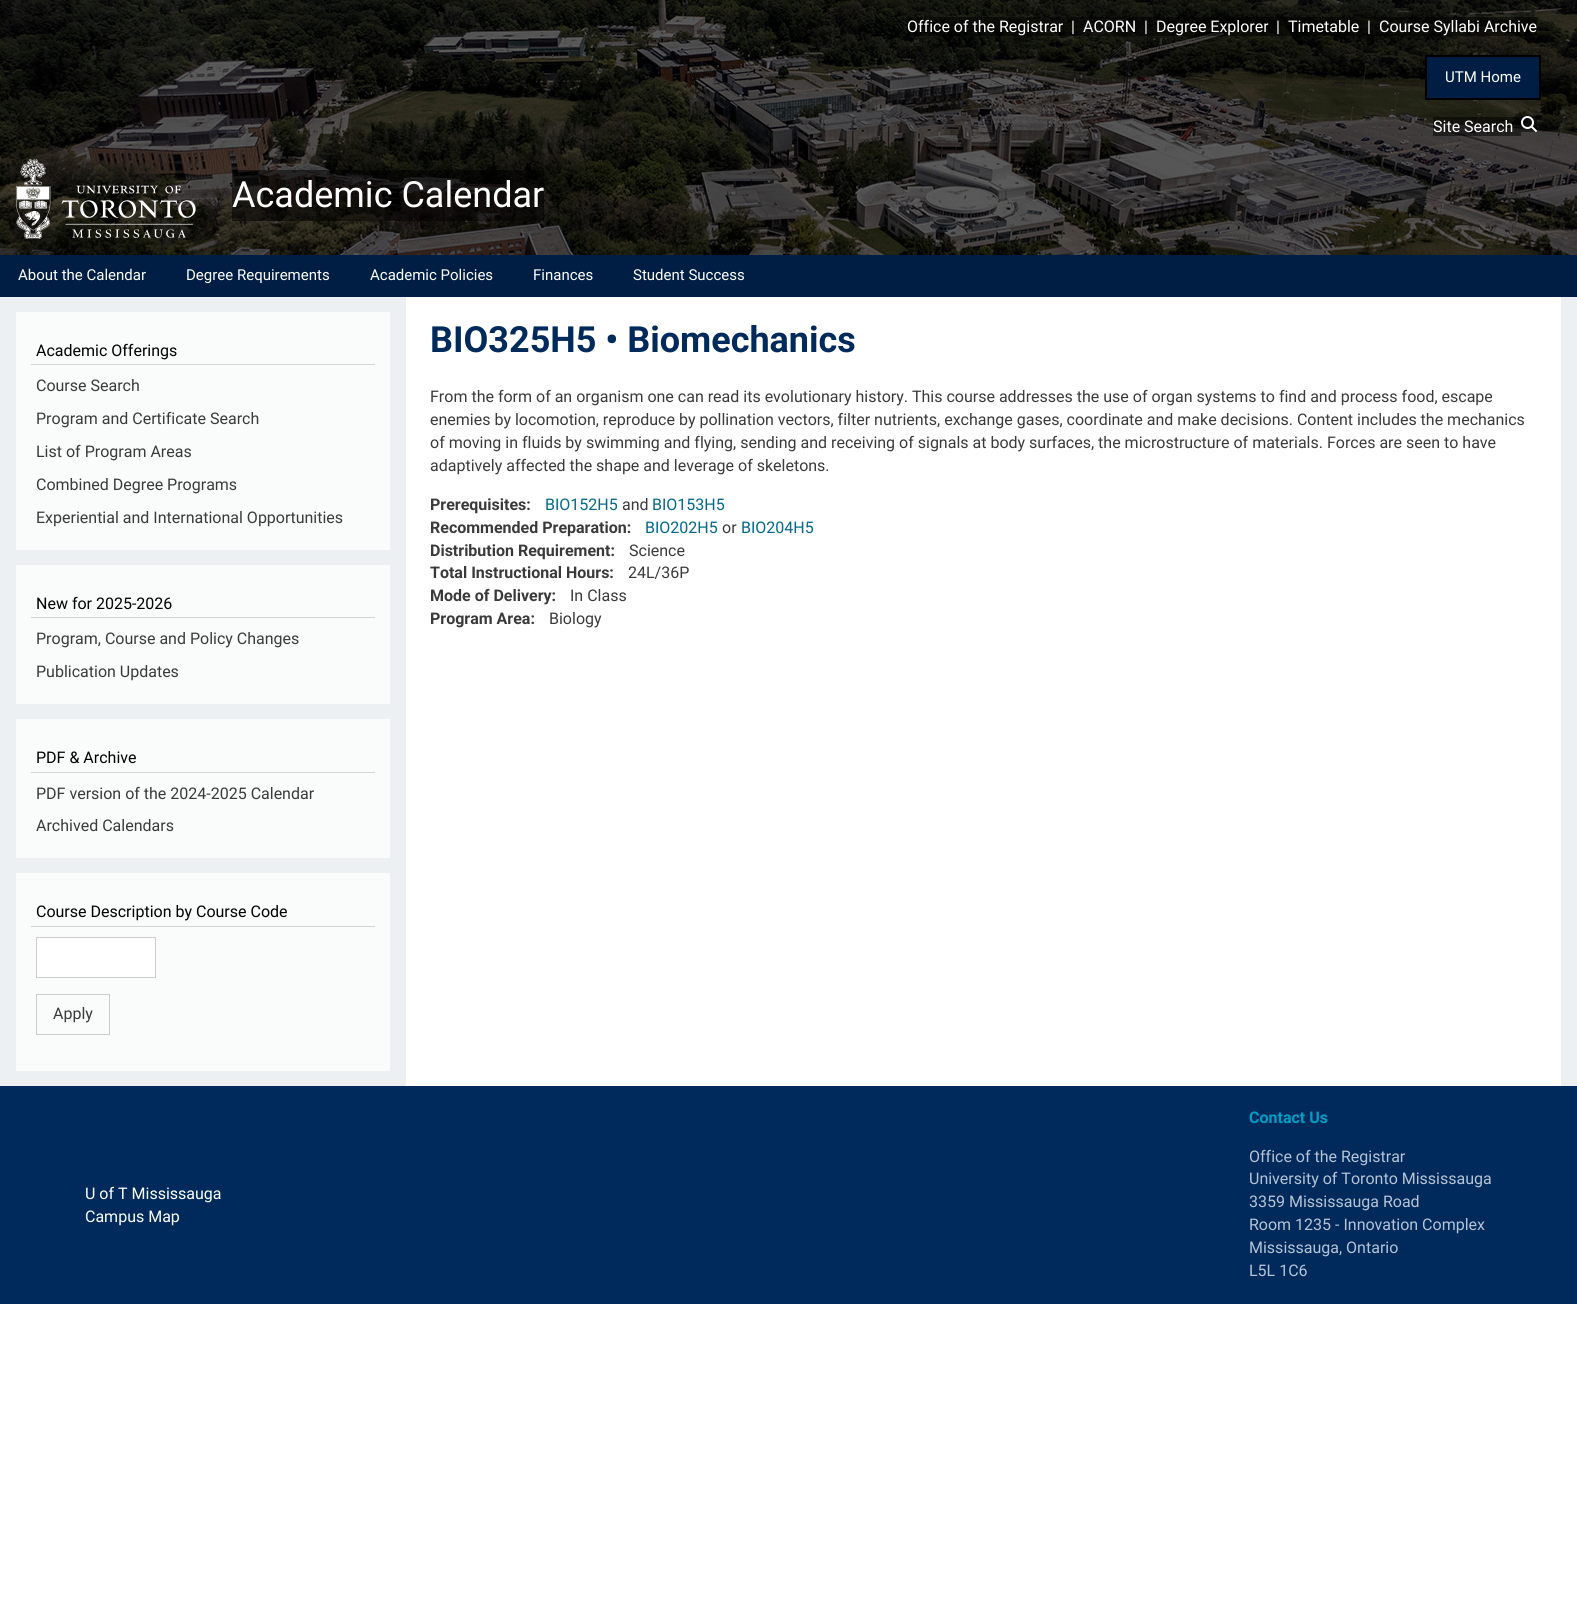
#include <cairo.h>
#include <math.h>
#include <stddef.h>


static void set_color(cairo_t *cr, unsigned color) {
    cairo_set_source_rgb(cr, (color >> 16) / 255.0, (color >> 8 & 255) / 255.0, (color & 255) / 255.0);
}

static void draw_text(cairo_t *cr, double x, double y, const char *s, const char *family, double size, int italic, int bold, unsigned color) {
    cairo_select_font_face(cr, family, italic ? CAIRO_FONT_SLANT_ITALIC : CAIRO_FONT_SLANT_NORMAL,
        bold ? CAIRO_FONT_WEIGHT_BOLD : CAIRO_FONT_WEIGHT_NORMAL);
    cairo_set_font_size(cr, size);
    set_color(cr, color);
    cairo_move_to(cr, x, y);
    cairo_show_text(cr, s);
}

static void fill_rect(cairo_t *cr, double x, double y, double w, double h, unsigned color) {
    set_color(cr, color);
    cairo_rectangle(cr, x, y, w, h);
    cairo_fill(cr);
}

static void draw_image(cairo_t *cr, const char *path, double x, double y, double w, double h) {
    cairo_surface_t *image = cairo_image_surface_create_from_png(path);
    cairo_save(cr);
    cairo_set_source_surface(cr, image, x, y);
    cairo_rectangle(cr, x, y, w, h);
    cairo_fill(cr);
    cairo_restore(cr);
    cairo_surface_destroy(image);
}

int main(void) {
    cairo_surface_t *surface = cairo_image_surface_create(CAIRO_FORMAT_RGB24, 1577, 1611);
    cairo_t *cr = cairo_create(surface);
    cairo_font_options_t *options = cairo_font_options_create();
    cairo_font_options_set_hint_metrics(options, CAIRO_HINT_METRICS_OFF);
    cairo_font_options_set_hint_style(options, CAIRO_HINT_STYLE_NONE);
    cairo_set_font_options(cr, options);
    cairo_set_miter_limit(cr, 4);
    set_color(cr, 0xFFFFFF);
    cairo_paint(cr);
    draw_image(cr, "assets/img1.png", 0, 0, 1577, 255);
    cairo_set_source_rgba(cr, 0, 0, 0, 0.5);
    cairo_rectangle(cr, 907, 17, 156, 19);
    cairo_fill(cr);
    draw_text(cr, 907, 32, "Office of the Registrar", "Roboto", 16, 0, 0, 0xFFFFFF);
    cairo_set_source_rgba(cr, 0, 0, 0, 0.5);
    cairo_rectangle(cr, 1063, 17, 20, 19);
    cairo_fill(cr);
    draw_text(cr, 1071, 32, "|", "Roboto", 16, 0, 0, 0xFFFFFF);
    cairo_set_source_rgba(cr, 0, 0, 0, 0.5);
    cairo_rectangle(cr, 1083, 17, 53, 19);
    cairo_fill(cr);
    draw_text(cr, 1083, 32, "ACORN", "Roboto", 16, 0, 0, 0xFFFFFF);
    cairo_set_source_rgba(cr, 0, 0, 0, 0.5);
    cairo_rectangle(cr, 1136, 17, 20, 19);
    cairo_fill(cr);
    draw_text(cr, 1144, 32, "|", "Roboto", 16, 0, 0, 0xFFFFFF);
    cairo_set_source_rgba(cr, 0, 0, 0, 0.5);
    cairo_rectangle(cr, 1156, 17, 112, 19);
    cairo_fill(cr);
    draw_text(cr, 1156, 32, "Degree Explorer", "Roboto", 16, 0, 0, 0xFFFFFF);
    cairo_set_source_rgba(cr, 0, 0, 0, 0.5);
    cairo_rectangle(cr, 1268, 17, 20, 19);
    cairo_fill(cr);
    draw_text(cr, 1276, 32, "|", "Roboto", 16, 0, 0, 0xFFFFFF);
    cairo_set_source_rgba(cr, 0, 0, 0, 0.5);
    cairo_rectangle(cr, 1288, 17, 71, 19);
    cairo_fill(cr);
    draw_text(cr, 1288, 32, "Timetable", "Roboto", 16, 0, 0, 0xFFFFFF);
    cairo_set_source_rgba(cr, 0, 0, 0, 0.5);
    cairo_rectangle(cr, 1359, 17, 20, 19);
    cairo_fill(cr);
    draw_text(cr, 1367, 32, "|", "Roboto", 16, 0, 0, 0xFFFFFF);
    cairo_set_source_rgba(cr, 0, 0, 0, 0.5);
    cairo_rectangle(cr, 1379, 17, 158, 19);
    cairo_fill(cr);
    draw_text(cr, 1379, 32, "Course Syllabi Archive", "Roboto", 16, 0, 0, 0xFFFFFF);
    set_color(cr, 0x001E43);
    cairo_rectangle(cr, 1426, 56, 114, 43);
    cairo_fill_preserve(cr);
    set_color(cr, 0x000000);
    cairo_stroke(cr);
    draw_text(cr, 1445, 82, "UTM Home", "Roboto", 15, 0, 0, 0xFFFFFF);
    cairo_set_source_rgba(cr, 0, 0, 0, 0.5);
    cairo_rectangle(cr, 1433, 117, 88, 19);
    cairo_fill(cr);
    draw_text(cr, 1433, 132, "Site Search", "Roboto", 16, 0, 0, 0xFFFFFF);
    cairo_set_source_rgba(cr, 0, 0, 0, 0.5);
    cairo_rectangle(cr, 1521, 116, 16, 16);
    cairo_fill(cr);
    draw_image(cr, "assets/img2.png", 1521, 116, 16, 16);
    draw_image(cr, "assets/img3.png", 16, 159, 180, 80);
    cairo_rectangle(cr, 232, 170, 312, 51);
    cairo_fill(cr);
    draw_text(cr, 232, 207, "Academic Calendar", "Roboto", 36, 0, 0, 0xFFFFFF);
    fill_rect(cr, 0, 255, 1577, 42, 0x001E43);
    draw_text(cr, 18, 280, "About the Calendar", "Roboto", 15, 0, 0, 0xFFFFFF);
    draw_text(cr, 186, 280, "Degree Requirements", "Roboto", 15, 0, 0, 0xFFFFFF);
    draw_text(cr, 370, 280, "Academic Policies", "Roboto", 15, 0, 0, 0xFFFFFF);
    draw_text(cr, 533, 280, "Finances", "Roboto", 15, 0, 0, 0xFFFFFF);
    draw_text(cr, 633, 280, "Student Success", "Roboto", 15, 0, 0, 0xFFFFFF);
    fill_rect(cr, 0, 297, 1577, 789, 0xECF0F3);
    fill_rect(cr, 16, 312, 374, 238, 0xFAFBFB);
    fill_rect(cr, 31, 364, 344, 1, 0xD6D6D6);
    draw_text(cr, 36, 356, "Academic Offerings", "Roboto", 16, 0, 0, 0x000000);
    draw_text(cr, 36, 391, "Course Search", "Roboto", 16, 0, 0, 0x3A3A3A);
    draw_text(cr, 36, 424, "Program and Certificate Search", "Roboto", 16, 0, 0, 0x3A3A3A);
    draw_text(cr, 36, 457, "List of Program Areas", "Roboto", 16, 0, 0, 0x3A3A3A);
    draw_text(cr, 36, 490, "Combined Degree Programs", "Roboto", 16, 0, 0, 0x3A3A3A);
    draw_text(cr, 36, 523, "Experiential and International Opportunities", "Roboto", 16, 0, 0, 0x3A3A3A);
    fill_rect(cr, 16, 565, 374, 139, 0xFAFBFB);
    fill_rect(cr, 31, 617, 344, 1, 0xD6D6D6);
    draw_text(cr, 36, 609, "New for 2025-2026", "Roboto", 16, 0, 0, 0x000000);
    draw_text(cr, 36, 644, "Program, Course and Policy Changes", "Roboto", 16, 0, 0, 0x3A3A3A);
    draw_text(cr, 36, 677, "Publication Updates", "Roboto", 16, 0, 0, 0x3A3A3A);
    fill_rect(cr, 16, 719, 374, 139, 0xFAFBFB);
    fill_rect(cr, 31, 772, 344, 1, 0xD6D6D6);
    draw_text(cr, 36, 763, "PDF & Archive", "Roboto", 16, 0, 0, 0x000000);
    draw_text(cr, 36, 799, "PDF version of the 2024-2025 Calendar", "Roboto", 16, 0, 0, 0x3A3A3A);
    draw_text(cr, 36, 831, "Archived Calendars", "Roboto", 16, 0, 0, 0x3A3A3A);
    fill_rect(cr, 16, 873, 374, 198, 0xFAFBFB);
    fill_rect(cr, 31, 926, 344, 1, 0xD6D6D6);
    draw_text(cr, 36, 917, "Course Description by Course Code", "Roboto", 16, 0, 0, 0x000000);
    set_color(cr, 0xFFFFFF);
    cairo_rectangle(cr, 36.5, 937.5, 119, 40);
    cairo_fill_preserve(cr);
    set_color(cr, 0xCCCCCC);
    cairo_set_line_width(cr, 1);
    cairo_stroke(cr);
    cairo_rectangle(cr, 36.5, 994.5, 73, 40);
    cairo_stroke(cr);
    draw_text(cr, 53, 1019, "Apply", "Roboto", 16, 0, 0, 0x3A3A3A);
    fill_rect(cr, 406, 297, 1155, 789, 0xFFFFFF);
    draw_text(cr, 430, 352, "BIO325H5 • Biomechanics", "Roboto", 36, 0, 1, 0x002A5C);
    draw_text(cr, 430, 402, "From the form of an organism one can read its evolutionary history. This course addresses the use of organ systems to find and process food, escape", "Roboto", 16, 0, 0, 0x3A3A3A);
    draw_text(cr, 430, 425, "enemies by locomotion, reproduce by pollination vectors, filter nutrients, exchange gases, coordinate and make decisions. Content includes the mechanics", "Roboto", 16, 0, 0, 0x3A3A3A);
    draw_text(cr, 430, 448, "of moving in fluids by swimming and flying, sending and receiving of signals at body surfaces, the microstructure of materials. Forces are seen to have", "Roboto", 16, 0, 0, 0x3A3A3A);
    draw_text(cr, 430, 471, "adaptively affected the shape and leverage of skeletons.", "Roboto", 16, 0, 0, 0x3A3A3A);
    draw_text(cr, 430, 510, "Prerequisites:", "Roboto", 16, 0, 1, 0x3A3A3A);
    draw_text(cr, 545, 510, "BIO152H5", "Roboto", 16, 0, 0, 0x016A8A);
    draw_text(cr, 622, 510, "and", "Roboto", 16, 0, 0, 0x3A3A3A);
    draw_text(cr, 652, 510, "BIO153H5", "Roboto", 16, 0, 0, 0x016A8A);
    draw_text(cr, 430, 533, "Recommended Preparation:", "Roboto", 16, 0, 1, 0x3A3A3A);
    draw_text(cr, 645, 533, "BIO202H5", "Roboto", 16, 0, 0, 0x016A8A);
    draw_text(cr, 722, 533, "or", "Roboto", 16, 0, 0, 0x3A3A3A);
    draw_text(cr, 741, 533, "BIO204H5", "Roboto", 16, 0, 0, 0x016A8A);
    draw_text(cr, 430, 556, "Distribution Requirement:", "Roboto", 16, 0, 1, 0x3A3A3A);
    draw_text(cr, 629, 556, "Science", "Roboto", 16, 0, 0, 0x3A3A3A);
    draw_text(cr, 430, 578, "Total Instructional Hours:", "Roboto", 16, 0, 1, 0x3A3A3A);
    draw_text(cr, 628, 578, "24L/36P", "Roboto", 16, 0, 0, 0x3A3A3A);
    draw_text(cr, 430, 601, "Mode of Delivery:", "Roboto", 16, 0, 1, 0x3A3A3A);
    draw_text(cr, 570, 601, "In Class", "Roboto", 16, 0, 0, 0x3A3A3A);
    draw_text(cr, 430, 624, "Program Area:", "Roboto", 16, 0, 1, 0x3A3A3A);
    draw_text(cr, 549, 624, "Biology", "Roboto", 16, 0, 0, 0x3A3A3A);
    fill_rect(cr, 0, 1086, 1577, 218, 0x002A5C);
    draw_text(cr, 85, 1199, "U of T Mississauga", "Roboto", 16, 0, 0, 0xFFFFFF);
    draw_text(cr, 85, 1222, "Campus Map", "Roboto", 16, 0, 0, 0xFFFFFF);
    draw_text(cr, 1249, 1123, "Contact Us", "Roboto", 16, 0, 1, 0x009EC7);
    draw_text(cr, 1249, 1162, "Office of the Registrar", "Roboto", 16, 0, 0, 0xB6C3D4);
    draw_text(cr, 1249, 1184, "University of Toronto Mississauga", "Roboto", 16, 0, 0, 0xB6C3D4);
    draw_text(cr, 1249, 1207, "3359 Mississauga Road", "Roboto", 16, 0, 0, 0xB6C3D4);
    draw_text(cr, 1249, 1230, "Room 1235 - Innovation Complex", "Roboto", 16, 0, 0, 0xB6C3D4);
    draw_text(cr, 1249, 1253, "Mississauga, Ontario", "Roboto", 16, 0, 0, 0xB6C3D4);
    draw_text(cr, 1249, 1276, "L5L 1C6", "Roboto", 16, 0, 0, 0xB6C3D4);
    cairo_surface_write_to_png(surface, "output.png");
    cairo_font_options_destroy(options);
    cairo_destroy(cr);
    cairo_surface_destroy(surface);
    return 0;
}
